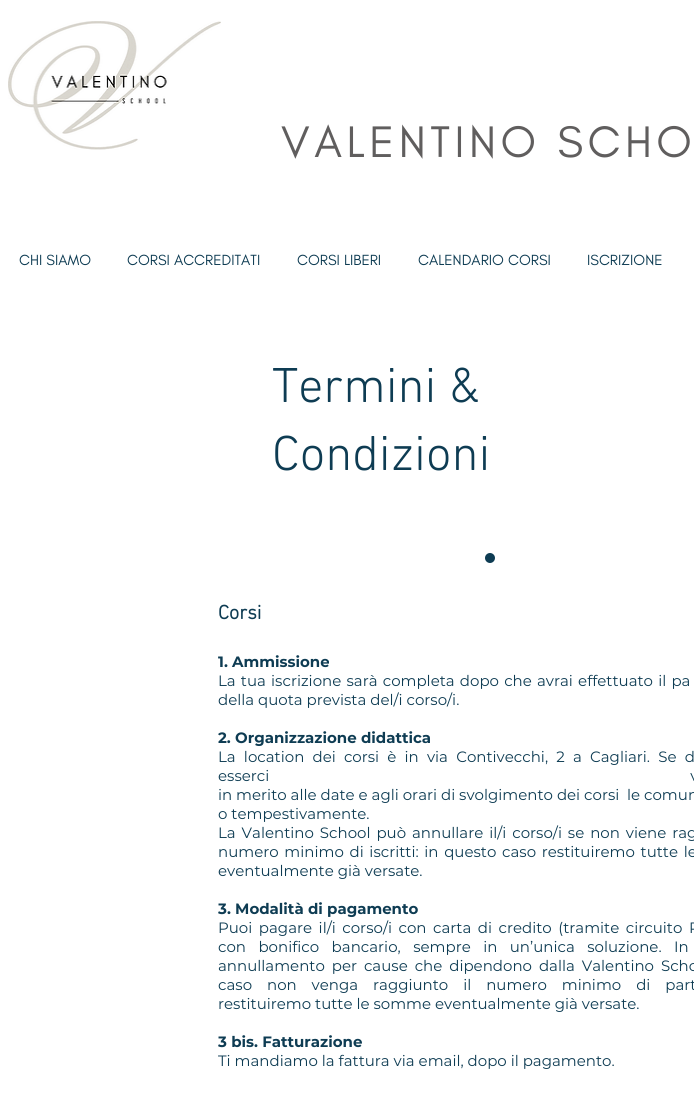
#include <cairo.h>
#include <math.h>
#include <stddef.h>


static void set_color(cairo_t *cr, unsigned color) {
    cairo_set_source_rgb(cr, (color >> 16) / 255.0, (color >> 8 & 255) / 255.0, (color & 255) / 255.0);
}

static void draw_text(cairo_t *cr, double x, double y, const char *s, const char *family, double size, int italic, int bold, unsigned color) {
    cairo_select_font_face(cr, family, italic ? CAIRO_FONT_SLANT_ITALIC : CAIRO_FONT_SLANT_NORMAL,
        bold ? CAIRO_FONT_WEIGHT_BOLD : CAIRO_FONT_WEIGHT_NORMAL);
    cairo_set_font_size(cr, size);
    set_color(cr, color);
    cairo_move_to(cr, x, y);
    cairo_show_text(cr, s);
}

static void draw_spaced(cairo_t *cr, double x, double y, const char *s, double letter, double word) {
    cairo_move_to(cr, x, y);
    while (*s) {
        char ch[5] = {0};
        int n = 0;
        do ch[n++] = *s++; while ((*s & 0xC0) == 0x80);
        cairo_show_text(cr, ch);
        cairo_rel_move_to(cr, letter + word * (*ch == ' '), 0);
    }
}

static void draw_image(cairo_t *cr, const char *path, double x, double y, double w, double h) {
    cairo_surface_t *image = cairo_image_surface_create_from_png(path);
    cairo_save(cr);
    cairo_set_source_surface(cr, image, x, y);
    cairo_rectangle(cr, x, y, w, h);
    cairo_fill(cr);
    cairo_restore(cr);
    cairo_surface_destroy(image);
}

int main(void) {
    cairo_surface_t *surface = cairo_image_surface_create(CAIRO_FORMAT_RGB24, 694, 1095);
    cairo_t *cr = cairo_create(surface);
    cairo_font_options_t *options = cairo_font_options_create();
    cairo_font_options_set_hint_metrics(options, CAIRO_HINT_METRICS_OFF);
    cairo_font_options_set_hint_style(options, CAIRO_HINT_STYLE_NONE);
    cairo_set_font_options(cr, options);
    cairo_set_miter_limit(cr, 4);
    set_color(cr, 0xFFFFFF);
    cairo_paint(cr);
    draw_image(cr, "assets/img1.png", 8, 21, 213, 129);
    cairo_select_font_face(cr, "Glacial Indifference", CAIRO_FONT_SLANT_NORMAL, CAIRO_FONT_WEIGHT_NORMAL);
    cairo_set_font_size(cr, 45);
    set_color(cr, 0x605E5E);
    draw_spaced(cr, 281, 157, "VALENTINO SCHO", 4.5, 0);
    draw_text(cr, 19, 265, "CHI SIAMO", "Glacial Indifference", 15, 0, 0, 0x0E3C53);
    draw_text(cr, 127, 265, "CORSI ACCREDITATI", "Glacial Indifference", 15, 0, 0, 0x0E3C53);
    draw_text(cr, 297, 265, "CORSI LIBERI", "Glacial Indifference", 15, 0, 0, 0x0E3C53);
    draw_text(cr, 418, 265, "CALENDARIO CORSI", "Glacial Indifference", 15, 0, 0, 0x0E3C53);
    draw_text(cr, 587, 265, "ISCRIZIONE", "Glacial Indifference", 15, 0, 0, 0x0E3C53);
    draw_text(cr, 272, 402, "Termini &", "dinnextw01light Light", 50, 0, 0, 0x0E3C53);
    draw_text(cr, 272, 470, "Condizioni", "dinnextw01light Light", 50, 0, 0, 0x0E3C53);
    draw_image(cr, "assets/img2.png", 485, 553, 10, 10);
    draw_text(cr, 218, 619, "Corsi", "dinnextw01light", 20, 0, 1, 0x0E3C53);
    draw_text(cr, 218, 667, "1. Ammissione", "Montserrat", 15, 0, 1, 0x0E3C53);
    cairo_select_font_face(cr, "Montserrat", CAIRO_FONT_SLANT_NORMAL, CAIRO_FONT_WEIGHT_NORMAL);
    draw_spaced(cr, 218, 686, "La tua iscrizione sarà completa dopo che avrai effettuato il pa", 0, 1.25);
    draw_text(cr, 218, 705, "della quota prevista del/i corso/i.", "Montserrat", 15, 0, 0, 0x0E3C53);
    draw_text(cr, 218, 743, "2. Organizzazione didattica", "Montserrat", 15, 0, 1, 0x0E3C53);
    cairo_select_font_face(cr, "Montserrat", CAIRO_FONT_SLANT_NORMAL, CAIRO_FONT_WEIGHT_NORMAL);
    draw_spaced(cr, 218, 762, "La location dei corsi è in via Contivecchi, 2 a Cagliari. Se d", 0, 4.25);
    draw_spaced(cr, 218, 781, "esserci v", 0, 417);
    draw_text(cr, 218, 800, "in merito alle date e agli orari di svolgimento dei corsi", "Montserrat", 15, 0, 0, 0x0E3C53);
    draw_text(cr, 627, 800, "le comun", "Montserrat", 15, 0, 0, 0x0E3C53);
    draw_text(cr, 218, 819, "o tempestivamente.", "Montserrat", 15, 0, 0, 0x0E3C53);
    draw_spaced(cr, 218, 838, "La Valentino School può annullare il/i corso/i se non viene rag", 0, 2);
    draw_spaced(cr, 218, 857, "numero minimo di iscritti: in questo caso restituiremo tutte le", 0, 1.75);
    draw_text(cr, 218, 876, "eventualmente già versate.", "Montserrat", 15, 0, 0, 0x0E3C53);
    draw_text(cr, 218, 914, "3. Modalità di pagamento", "Montserrat", 15, 0, 1, 0x0E3C53);
    cairo_select_font_face(cr, "Montserrat", CAIRO_FONT_SLANT_NORMAL, CAIRO_FONT_WEIGHT_NORMAL);
    draw_spaced(cr, 218, 933, "Puoi pagare il/i corso/i con carta di credito (tramite circuito P", 0, 2.6);
    draw_spaced(cr, 218, 952, "con bonifico bancario, sempre in un’unica soluzione. In", 0, 8.5);
    draw_spaced(cr, 218, 971, "annullamento per cause che dipendono dalla Valentino Scho", 0, 3);
    draw_spaced(cr, 218, 990, "caso non venga raggiunto il numero minimo di part", 0, 11);
    draw_text(cr, 218, 1009, "restituiremo tutte le somme eventualmente già versate.", "Montserrat", 15, 0, 0, 0x0E3C53);
    draw_text(cr, 218, 1047, "3 bis. Fatturazione", "Montserrat", 15, 0, 1, 0x0E3C53);
    draw_text(cr, 218, 1066, "Ti mandiamo la fattura via email, dopo il pagamento.", "Montserrat", 15, 0, 0, 0x0E3C53);
    cairo_surface_write_to_png(surface, "output.png");
    cairo_font_options_destroy(options);
    cairo_destroy(cr);
    cairo_surface_destroy(surface);
    return 0;
}
